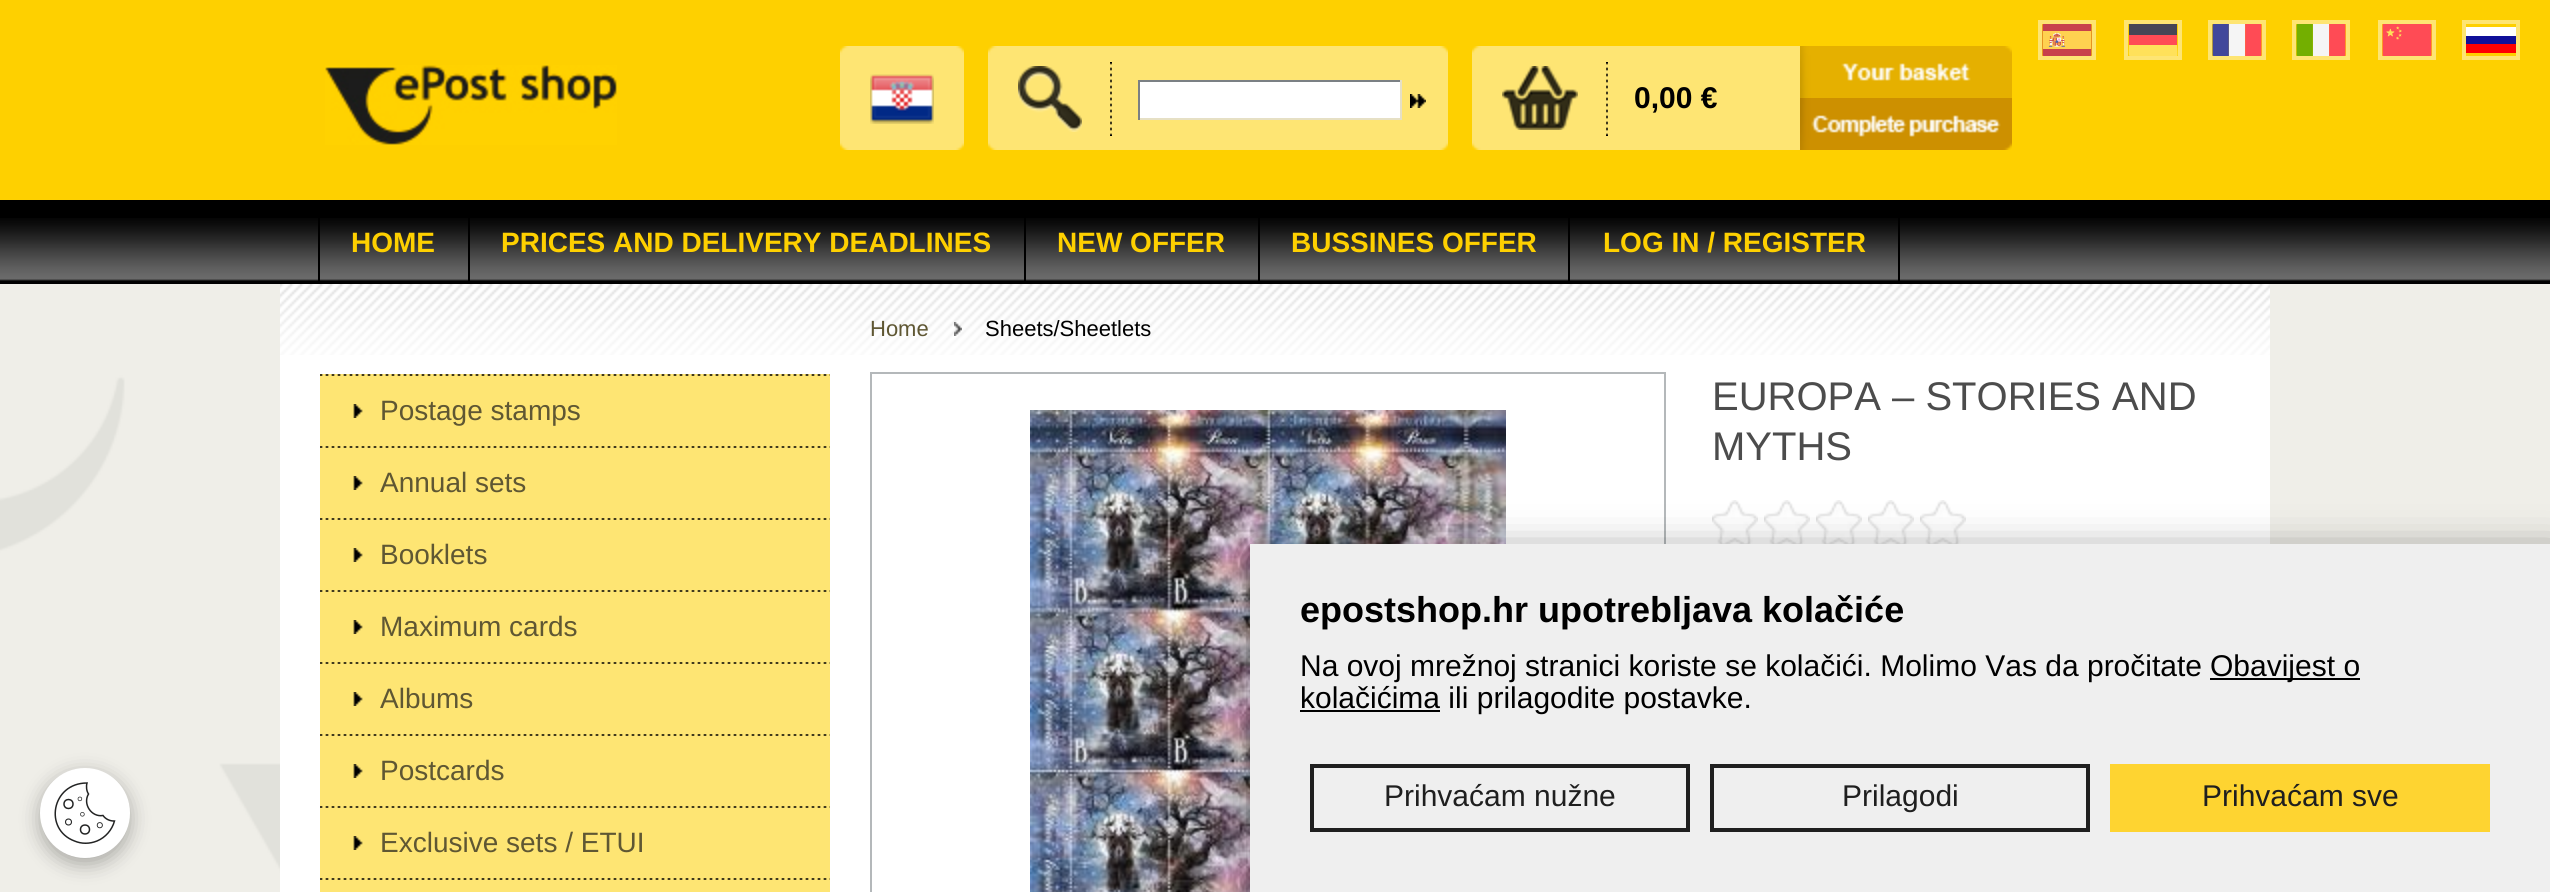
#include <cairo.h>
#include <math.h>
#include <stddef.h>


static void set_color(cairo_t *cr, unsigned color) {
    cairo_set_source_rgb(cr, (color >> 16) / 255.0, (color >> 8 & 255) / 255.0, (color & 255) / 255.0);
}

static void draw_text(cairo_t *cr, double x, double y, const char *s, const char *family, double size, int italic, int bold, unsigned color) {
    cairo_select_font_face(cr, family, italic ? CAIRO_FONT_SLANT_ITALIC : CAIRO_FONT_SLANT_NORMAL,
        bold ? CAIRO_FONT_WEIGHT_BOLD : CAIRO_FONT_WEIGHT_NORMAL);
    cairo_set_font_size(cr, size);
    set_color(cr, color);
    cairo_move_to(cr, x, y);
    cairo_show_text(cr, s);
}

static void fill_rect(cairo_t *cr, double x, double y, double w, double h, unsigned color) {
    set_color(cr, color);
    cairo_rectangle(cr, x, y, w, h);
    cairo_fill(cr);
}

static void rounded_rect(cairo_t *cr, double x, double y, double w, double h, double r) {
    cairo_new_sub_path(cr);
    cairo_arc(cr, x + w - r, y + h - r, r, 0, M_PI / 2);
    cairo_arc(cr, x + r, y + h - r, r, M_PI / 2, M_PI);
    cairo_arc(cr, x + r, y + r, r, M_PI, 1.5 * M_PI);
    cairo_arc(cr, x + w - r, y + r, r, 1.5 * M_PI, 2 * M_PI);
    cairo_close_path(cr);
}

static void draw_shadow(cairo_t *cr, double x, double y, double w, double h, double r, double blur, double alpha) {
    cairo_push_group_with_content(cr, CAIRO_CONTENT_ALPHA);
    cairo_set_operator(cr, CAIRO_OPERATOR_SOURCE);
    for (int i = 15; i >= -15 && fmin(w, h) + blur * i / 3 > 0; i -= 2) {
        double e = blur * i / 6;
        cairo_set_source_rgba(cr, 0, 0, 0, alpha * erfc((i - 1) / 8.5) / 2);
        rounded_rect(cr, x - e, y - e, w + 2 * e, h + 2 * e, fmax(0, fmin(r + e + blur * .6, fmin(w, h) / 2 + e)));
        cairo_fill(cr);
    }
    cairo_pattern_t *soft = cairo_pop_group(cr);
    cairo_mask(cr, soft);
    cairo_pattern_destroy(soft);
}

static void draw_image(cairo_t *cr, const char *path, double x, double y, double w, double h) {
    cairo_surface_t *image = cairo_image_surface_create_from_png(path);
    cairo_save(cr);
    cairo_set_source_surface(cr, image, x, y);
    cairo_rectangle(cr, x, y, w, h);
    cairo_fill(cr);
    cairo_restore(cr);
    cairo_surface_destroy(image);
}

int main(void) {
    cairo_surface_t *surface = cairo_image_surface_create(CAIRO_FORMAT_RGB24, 2550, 892);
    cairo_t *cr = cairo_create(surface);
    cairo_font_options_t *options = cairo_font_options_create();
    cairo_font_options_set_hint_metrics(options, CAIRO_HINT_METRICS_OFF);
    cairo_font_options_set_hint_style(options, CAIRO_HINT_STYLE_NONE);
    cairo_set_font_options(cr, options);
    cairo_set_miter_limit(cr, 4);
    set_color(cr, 0xFFFFFF);
    cairo_paint(cr);
    draw_image(cr, "assets/img1.png", 0, 284, 2550, 608);
    fill_rect(cr, 0, 0, 2550, 200, 0xFED000);
    cairo_rectangle(cr, 2040, 22, 54, 36);
    set_color(cr, 0xFEE573);
    cairo_set_line_width(cr, 4);
    cairo_stroke(cr);
    draw_image(cr, "assets/img2.png", 2042, 24, 50, 32);
    cairo_rectangle(cr, 2126, 22, 54, 36);
    cairo_stroke(cr);
    set_color(cr, 0x464655);
    cairo_new_path(cr);
    cairo_move_to(cr, 2177, 35);
    cairo_line_to(cr, 2129, 35);
    cairo_line_to(cr, 2129, 25);
    cairo_line_to(cr, 2129, 24);
    cairo_line_to(cr, 2177, 24);
    cairo_line_to(cr, 2177, 25);
    cairo_close_path(cr);
    cairo_fill(cr);
    fill_rect(cr, 2129, 35, 48, 10, 0xFF4B55);
    cairo_save(cr);
    cairo_rectangle(cr, 2128, 24, 50, 32);
    cairo_clip(cr);
    set_color(cr, 0xFFE15A);
    cairo_new_path(cr);
    cairo_move_to(cr, 2177, 56);
    cairo_line_to(cr, 2145, 56);
    cairo_curve_to(cr, 2126, 56, 2129, 60, 2129, 45);
    cairo_line_to(cr, 2177, 45);
    cairo_curve_to(cr, 2177, 47, 2178, 56, 2177, 56);
    cairo_close_path(cr);
    cairo_fill(cr);
    cairo_restore(cr);
    cairo_rectangle(cr, 2210, 22, 54, 36);
    set_color(cr, 0xFEE573);
    cairo_stroke(cr);
    draw_image(cr, "assets/img3.png", 2212, 24, 50, 32);
    cairo_rectangle(cr, 2294, 22, 54, 36);
    cairo_stroke(cr);
    draw_image(cr, "assets/img4.png", 2296, 24, 50, 32);
    cairo_rectangle(cr, 2380, 22, 54, 36);
    cairo_stroke(cr);
    draw_image(cr, "assets/img5.png", 2382, 24, 50, 32);
    cairo_rectangle(cr, 2464, 22, 54, 36);
    cairo_stroke(cr);
    fill_rect(cr, 2466, 27, 50, 9, 0xFFFFFF);
    fill_rect(cr, 2466, 36, 50, 8, 0x101099);
    fill_rect(cr, 2466, 44, 50, 9, 0xFF0000);
    draw_image(cr, "assets/img6.png", 325, 65, 292, 80);
    draw_image(cr, "assets/img7.png", 840, 46, 116, 104);
    draw_image(cr, "assets/img8.png", 956, 46, 8, 104);
    draw_image(cr, "assets/img9.png", 870, 74, 64, 50);
    draw_image(cr, "assets/img10.png", 988, 46, 452, 104);
    draw_image(cr, "assets/img11.png", 1440, 46, 8, 104);
    draw_image(cr, "assets/img12.png", 1110, 62, 2, 74);
    draw_image(cr, "assets/img13.png", 1018, 66, 64, 66);
    fill_rect(cr, 1140, 82, 260, 36, 0xFFFFFF);
    fill_rect(cr, 1138, 80, 264, 2, 0x7B8084);
    fill_rect(cr, 1400, 80, 2, 40, 0xE6E0C5);
    fill_rect(cr, 1138, 118, 264, 2, 0xE6E0C5);
    fill_rect(cr, 1138, 80, 2, 40, 0x7B8084);
    draw_image(cr, "assets/img14.png", 1410, 94, 16, 14);
    draw_image(cr, "assets/img15.png", 1472, 46, 328, 104);
    draw_image(cr, "assets/img12.png", 1606, 62, 2, 74);
    draw_image(cr, "assets/img16.png", 1502, 66, 76, 64);
    draw_text(cr, 1634, 108, "0,00 €", "Liberation Sans", 30, 0, 1, 0x000000);
    draw_image(cr, "assets/img17.png", 1800, 46, 212, 52);
    draw_image(cr, "assets/img18.png", 1800, 98, 212, 52);
    fill_rect(cr, 0, 200, 2550, 84, 0x000000);
    draw_image(cr, "assets/img19.png", 0, 218, 2550, 63);
    fill_rect(cr, 468, 218, 2, 66, 0x000000);
    fill_rect(cr, 318, 218, 2, 66, 0x000000);
    draw_text(cr, 351, 252, "HOME", "Liberation Sans", 28, 0, 1, 0xFED000);
    fill_rect(cr, 1024, 218, 2, 66, 0x000000);
    draw_text(cr, 501, 252, "PRICES AND DELIVERY DEADLINES", "Liberation Sans", 28, 0, 1, 0xFED000);
    fill_rect(cr, 1258, 218, 2, 66, 0x000000);
    draw_text(cr, 1057, 252, "NEW OFFER", "Liberation Sans", 28, 0, 1, 0xFED000);
    fill_rect(cr, 1568, 218, 2, 66, 0x000000);
    draw_text(cr, 1291, 252, "BUSSINES OFFER", "Liberation Sans", 28, 0, 1, 0xFED000);
    fill_rect(cr, 1898, 218, 2, 66, 0x000000);
    draw_text(cr, 1603, 252, "LOG IN / REGISTER", "Liberation Sans", 28, 0, 1, 0xFED000);
    fill_rect(cr, 280, 355, 1990, 537, 0xFFFFFF);
    draw_image(cr, "assets/img20.png", 280, 284, 1990, 71);
    fill_rect(cr, 320, 374, 510, 518, 0xFEE573);
    draw_image(cr, "assets/img21.png", 320, 374, 510, 2);
    draw_image(cr, "assets/img22.png", 353, 404, 10, 14);
    draw_text(cr, 380, 420, "Postage stamps", "Liberation Sans", 28, 0, 0, 0x5F5733);
    draw_image(cr, "assets/img21.png", 320, 446, 510, 2);
    draw_image(cr, "assets/img22.png", 353, 476, 10, 14);
    draw_text(cr, 380, 492, "Annual sets", "Liberation Sans", 28, 0, 0, 0x5F5733);
    draw_image(cr, "assets/img21.png", 320, 518, 510, 2);
    draw_image(cr, "assets/img22.png", 353, 548, 10, 14);
    draw_text(cr, 380, 564, "Booklets", "Liberation Sans", 28, 0, 0, 0x5F5733);
    draw_image(cr, "assets/img21.png", 320, 590, 510, 2);
    draw_image(cr, "assets/img22.png", 353, 620, 10, 14);
    draw_text(cr, 380, 636, "Maximum cards", "Liberation Sans", 28, 0, 0, 0x5F5733);
    draw_image(cr, "assets/img21.png", 320, 662, 510, 2);
    draw_image(cr, "assets/img22.png", 353, 692, 10, 14);
    draw_text(cr, 380, 708, "Albums", "Liberation Sans", 28, 0, 0, 0x5F5733);
    draw_image(cr, "assets/img21.png", 320, 734, 510, 2);
    draw_image(cr, "assets/img22.png", 353, 764, 10, 14);
    draw_text(cr, 380, 780, "Postcards", "Liberation Sans", 28, 0, 0, 0x5F5733);
    draw_image(cr, "assets/img21.png", 320, 806, 510, 2);
    draw_image(cr, "assets/img22.png", 353, 836, 10, 14);
    draw_text(cr, 380, 852, "Exclusive sets / ETUI", "Liberation Sans", 28, 0, 0, 0x5F5733);
    draw_image(cr, "assets/img21.png", 320, 878, 510, 2);
    draw_text(cr, 870, 336, "Home", "Liberation Sans", 22, 0, 0, 0x5F5733);
    draw_image(cr, "assets/img23.png", 954, 322, 8, 14);
    draw_text(cr, 985, 336, "Sheets/Sheetlets", "Liberation Sans", 22, 0, 0, 0x000000);
    cairo_rectangle(cr, 871, 373, 794, 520);
    set_color(cr, 0xB4B8BA);
    cairo_set_line_width(cr, 2);
    cairo_stroke(cr);
    draw_image(cr, "assets/img24.png", 1030, 410, 476, 482);
    draw_text(cr, 1712, 410, "EUROPA – STORIES AND", "Liberation Sans", 40, 0, 0, 0x4C4C4C);
    draw_text(cr, 1712, 460, "MYTHS", "Liberation Sans", 40, 0, 0, 0x4C4C4C);
    draw_image(cr, "assets/img25.png", 1712, 500, 46, 44);
    draw_image(cr, "assets/img25.png", 1764, 500, 46, 44);
    draw_image(cr, "assets/img25.png", 1816, 500, 46, 44);
    draw_image(cr, "assets/img25.png", 1868, 500, 46, 44);
    draw_image(cr, "assets/img25.png", 1920, 500, 46, 44);
    set_color(cr, 0x000000);
    draw_shadow(cr, 40, 774, 90, 90, 45, 10, 0.3);
    set_color(cr, 0xFFFFFF);
    cairo_arc(cr, 85, 813, 45, 0, 2 * M_PI);
    cairo_fill(cr);
    cairo_new_path(cr);
    cairo_move_to(cr, 114, 821);
    cairo_curve_to(cr, 109.5, 821, 105.5, 819, 103, 815.5);
    cairo_curve_to(cr, 91.5, 817.5, 82.5, 804, 88.5, 794);
    cairo_curve_to(cr, 86.5, 791, 86, 786.5, 87, 783);
    cairo_curve_to(cr, 51.5, 783, 43.5, 829.5, 74.5, 841);
    cairo_curve_to(cr, 81.5, 844, 89.5, 844, 97, 841);
    cairo_curve_to(cr, 105.5, 837.5, 112, 830, 114.5, 821);
    cairo_close_path(cr);
    set_color(cr, 0x222323);
    cairo_set_line_width(cr, 1.5);
    cairo_stroke(cr);
    cairo_arc(cr, 68.5, 804, 4.5, 0, 2 * M_PI);
    cairo_stroke(cr);
    cairo_arc(cr, 85, 829.5, 4.5, 0, 2 * M_PI);
    cairo_stroke(cr);
    cairo_arc(cr, 68.5, 822, 3, 0, 2 * M_PI);
    cairo_set_line_width(cr, 1.1);
    cairo_stroke(cr);
    cairo_arc(cr, 99.8, 825.2, 2.6, 0, 2 * M_PI);
    cairo_set_line_width(cr, 0.9);
    cairo_stroke(cr);
    cairo_arc(cr, 82.4, 814.3, 1.9, 0, 2 * M_PI);
    cairo_set_line_width(cr, 0.7);
    cairo_stroke(cr);
    cairo_arc(cr, 79.9, 798.9, 1.9, 0, 2 * M_PI);
    cairo_stroke(cr);
    set_color(cr, 0x000000);
    draw_shadow(cr, 1256, 554, 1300, 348, 0, 20, 0.5);
    fill_rect(cr, 1250, 544, 1300, 348, 0xEFEFEF);
    draw_text(cr, 1300, 622, "epostshop.hr upotrebljava kolačiće", "Liberation Sans", 36, 0, 1, 0x000000);
    draw_text(cr, 1300, 676, "Na ovoj mrežnoj stranici koriste se kolačići. Molimo Vas da pročitate", "Liberation Sans", 30, 0, 0, 0x000000);
    fill_rect(cr, 2210, 678, 150, 2, 0x000000);
    draw_text(cr, 2210, 676, "Obavijest o", "Liberation Sans", 30, 0, 0, 0x000000);
    fill_rect(cr, 1300, 710, 140, 2, 0x000000);
    draw_text(cr, 1300, 708, "kolačićima ili prilagodite postavke.", "Liberation Sans", 30, 0, 0, 0x000000);
    cairo_rectangle(cr, 1312, 766, 376, 64);
    set_color(cr, 0x1F1F1F);
    cairo_set_line_width(cr, 4);
    cairo_stroke(cr);
    draw_text(cr, 1384, 806, "Prihvaćam nužne", "Liberation Sans", 30, 0, 0, 0x1F1F1F);
    cairo_rectangle(cr, 1712, 766, 376, 64);
    cairo_stroke(cr);
    draw_text(cr, 1842, 806, "Prilagodi", "Liberation Sans", 30, 0, 0, 0x1F1F1F);
    fill_rect(cr, 2110, 764, 380, 68, 0xFED431);
    draw_text(cr, 2202, 806, "Prihvaćam sve", "Liberation Sans", 30, 0, 0, 0x1F1F1F);
    cairo_surface_write_to_png(surface, "output.png");
    cairo_font_options_destroy(options);
    cairo_destroy(cr);
    cairo_surface_destroy(surface);
    return 0;
}
